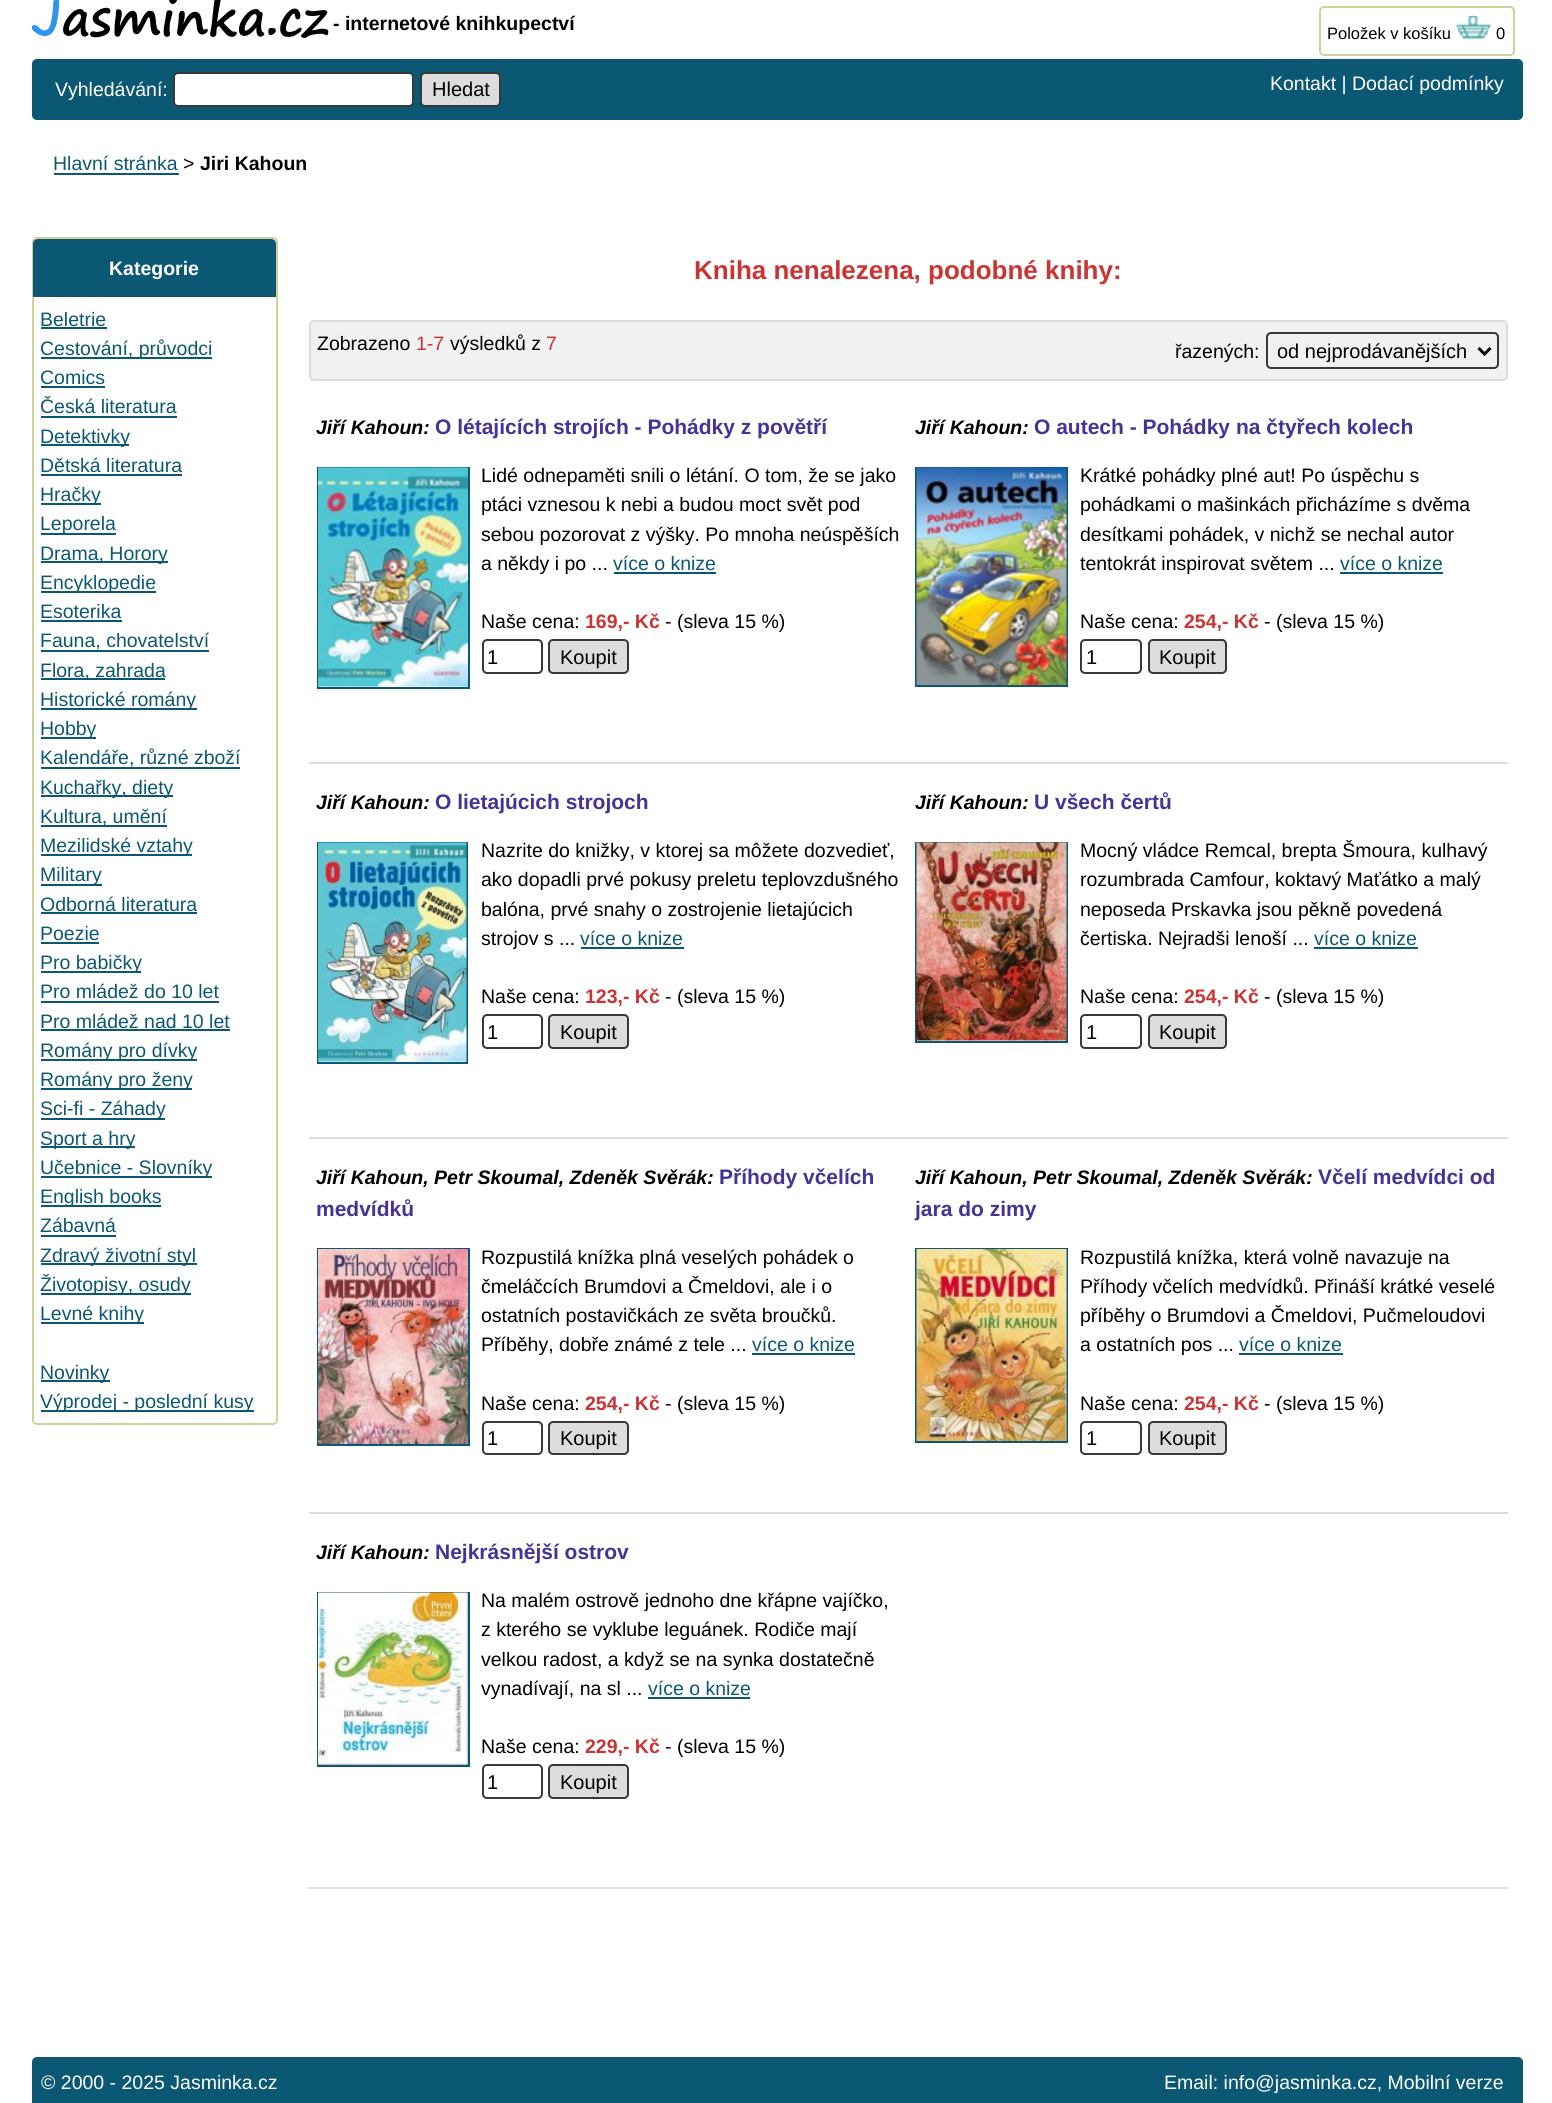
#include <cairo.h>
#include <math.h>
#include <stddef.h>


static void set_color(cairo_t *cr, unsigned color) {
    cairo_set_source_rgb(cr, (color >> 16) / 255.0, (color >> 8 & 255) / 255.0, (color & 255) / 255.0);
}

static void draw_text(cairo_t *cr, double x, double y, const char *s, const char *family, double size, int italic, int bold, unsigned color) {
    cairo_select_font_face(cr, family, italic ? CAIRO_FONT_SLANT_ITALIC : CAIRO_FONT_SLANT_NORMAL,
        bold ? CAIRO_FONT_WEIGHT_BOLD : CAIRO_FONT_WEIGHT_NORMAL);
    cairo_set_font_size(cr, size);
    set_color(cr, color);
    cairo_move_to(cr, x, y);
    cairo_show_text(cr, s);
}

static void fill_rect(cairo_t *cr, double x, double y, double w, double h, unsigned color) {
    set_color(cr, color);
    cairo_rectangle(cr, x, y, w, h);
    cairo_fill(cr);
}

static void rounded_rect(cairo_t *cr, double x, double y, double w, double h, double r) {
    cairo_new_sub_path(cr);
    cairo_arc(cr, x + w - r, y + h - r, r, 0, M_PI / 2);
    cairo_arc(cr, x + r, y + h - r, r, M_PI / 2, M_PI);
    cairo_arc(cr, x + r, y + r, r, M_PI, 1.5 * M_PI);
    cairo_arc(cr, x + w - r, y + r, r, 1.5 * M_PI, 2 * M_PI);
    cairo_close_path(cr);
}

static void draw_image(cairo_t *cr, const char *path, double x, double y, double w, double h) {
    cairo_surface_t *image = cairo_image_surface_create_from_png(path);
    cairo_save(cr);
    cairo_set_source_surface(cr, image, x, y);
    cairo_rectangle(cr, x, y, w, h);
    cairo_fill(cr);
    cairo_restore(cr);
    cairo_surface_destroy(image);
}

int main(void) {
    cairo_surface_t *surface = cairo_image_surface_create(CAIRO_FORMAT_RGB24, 1552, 2103);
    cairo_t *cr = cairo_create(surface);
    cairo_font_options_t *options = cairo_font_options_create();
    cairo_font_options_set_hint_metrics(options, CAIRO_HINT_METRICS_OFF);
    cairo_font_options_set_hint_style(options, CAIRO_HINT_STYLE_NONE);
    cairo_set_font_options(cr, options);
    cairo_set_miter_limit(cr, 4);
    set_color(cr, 0xFFFFFF);
    cairo_paint(cr);
    draw_image(cr, "assets/img1.png", 32, 0, 297, 38);
    draw_text(cr, 333, 30, "- internetové knihkupectví", "Liberation Sans", 19.5, 0, 1, 0x000000);
    rounded_rect(cr, 1320, 7, 194, 48, 4);
    set_color(cr, 0xD0D098);
    cairo_stroke(cr);
    draw_text(cr, 1327, 39, "Položek v košíku", "Liberation Sans", 16.5, 0, 0, 0x000000);
    draw_image(cr, "assets/img2.png", 1456, 15, 35, 24);
    draw_text(cr, 1496, 39, "0", "Liberation Sans", 16.5, 0, 0, 0x000000);
    set_color(cr, 0x0B5875);
    rounded_rect(cr, 32, 59, 1491, 61, 5);
    cairo_fill(cr);
    draw_text(cr, 55, 96, "Vyhledávání:", "Liberation Sans", 19.5, 0, 0, 0xFFFFFF);
    rounded_rect(cr, 174, 73, 239, 33, 4);
    cairo_fill_preserve(cr);
    set_color(cr, 0x393939);
    cairo_stroke(cr);
    set_color(cr, 0xDDDDDD);
    rounded_rect(cr, 421, 73, 79, 33, 4);
    cairo_fill_preserve(cr);
    set_color(cr, 0x393939);
    cairo_stroke(cr);
    draw_text(cr, 432, 96, "Hledat", "Liberation Sans", 20, 0, 0, 0x000000);
    draw_text(cr, 1270, 90, "Kontakt | Dodací podmínky", "Liberation Sans", 19.5, 0, 0, 0xFFFFFF);
    draw_text(cr, 53, 170, "Hlavní stránka", "Liberation Sans", 19.5, 0, 0, 0x0B5875);
    fill_rect(cr, 54, 173, 125, 2, 0x0B5875);
    draw_text(cr, 183, 170, ">", "Liberation Sans", 19.5, 0, 0, 0x000000);
    draw_text(cr, 200, 170, "Jiri Kahoun", "Liberation Sans", 19.5, 0, 1, 0x000000);
    rounded_rect(cr, 33, 238, 244, 1186, 4);
    set_color(cr, 0xD0D098);
    cairo_stroke(cr);
    set_color(cr, 0x0B5875);
    cairo_new_path(cr);
    cairo_move_to(cr, 38, 239);
    cairo_line_to(cr, 271, 239);
    cairo_curve_to(cr, 274, 239, 276, 241, 276, 244);
    cairo_line_to(cr, 276, 297);
    cairo_line_to(cr, 33, 297);
    cairo_line_to(cr, 33, 244);
    cairo_curve_to(cr, 33, 241, 35, 239, 38, 239);
    cairo_close_path(cr);
    cairo_fill(cr);
    draw_text(cr, 109, 275, "Kategorie", "Liberation Sans", 19.5, 0, 1, 0xFFFFFF);
    draw_text(cr, 40, 326, "Beletrie", "Liberation Sans", 19.5, 0, 0, 0x0B5875);
    fill_rect(cr, 41, 327, 66, 2, 0x0B5875);
    fill_rect(cr, 41, 357, 171, 2, 0x0B5875);
    draw_text(cr, 40, 355, "Cestování, průvodci", "Liberation Sans", 19.5, 0, 0, 0x0B5875);
    draw_text(cr, 40, 384, "Comics", "Liberation Sans", 19.5, 0, 0, 0x0B5875);
    fill_rect(cr, 41, 386, 64, 2, 0x0B5875);
    draw_text(cr, 40, 413, "Česká literatura", "Liberation Sans", 19.5, 0, 0, 0x0B5875);
    fill_rect(cr, 41, 416, 136, 2, 0x0B5875);
    fill_rect(cr, 41, 444, 88, 2, 0x0B5875);
    draw_text(cr, 40, 443, "Detektivky", "Liberation Sans", 19.5, 0, 0, 0x0B5875);
    draw_text(cr, 40, 472, "Dětská literatura", "Liberation Sans", 19.5, 0, 0, 0x0B5875);
    fill_rect(cr, 41, 474, 141, 2, 0x0B5875);
    fill_rect(cr, 41, 503, 60, 2, 0x0B5875);
    draw_text(cr, 40, 501, "Hračky", "Liberation Sans", 19.5, 0, 0, 0x0B5875);
    fill_rect(cr, 41, 533, 75, 2, 0x0B5875);
    draw_text(cr, 40, 530, "Leporela", "Liberation Sans", 19.5, 0, 0, 0x0B5875);
    fill_rect(cr, 41, 561, 127, 2, 0x0B5875);
    draw_text(cr, 40, 560, "Drama, Horory", "Liberation Sans", 19.5, 0, 0, 0x0B5875);
    fill_rect(cr, 41, 591, 115, 2, 0x0B5875);
    draw_text(cr, 40, 589, "Encyklopedie", "Liberation Sans", 19.5, 0, 0, 0x0B5875);
    draw_text(cr, 40, 618, "Esoterika", "Liberation Sans", 19.5, 0, 0, 0x0B5875);
    fill_rect(cr, 41, 620, 81, 2, 0x0B5875);
    draw_text(cr, 40, 647, "Fauna, chovatelství", "Liberation Sans", 19.5, 0, 0, 0x0B5875);
    fill_rect(cr, 41, 650, 168, 2, 0x0B5875);
    fill_rect(cr, 41, 678, 124, 2, 0x0B5875);
    draw_text(cr, 40, 677, "Flora, zahrada", "Liberation Sans", 19.5, 0, 0, 0x0B5875);
    fill_rect(cr, 41, 708, 156, 2, 0x0B5875);
    draw_text(cr, 40, 706, "Historické romány", "Liberation Sans", 19.5, 0, 0, 0x0B5875);
    fill_rect(cr, 41, 737, 55, 2, 0x0B5875);
    draw_text(cr, 40, 735, "Hobby", "Liberation Sans", 19.5, 0, 0, 0x0B5875);
    draw_text(cr, 40, 764, "Kalendáře, různé zboží", "Liberation Sans", 19.5, 0, 0, 0x0B5875);
    fill_rect(cr, 41, 767, 199, 2, 0x0B5875);
    fill_rect(cr, 41, 795, 132, 2, 0x0B5875);
    draw_text(cr, 40, 794, "Kuchařky, diety", "Liberation Sans", 19.5, 0, 0, 0x0B5875);
    fill_rect(cr, 41, 825, 126, 2, 0x0B5875);
    draw_text(cr, 40, 823, "Kultura, umění", "Liberation Sans", 19.5, 0, 0, 0x0B5875);
    fill_rect(cr, 41, 854, 151, 2, 0x0B5875);
    draw_text(cr, 40, 852, "Mezilidské vztahy", "Liberation Sans", 19.5, 0, 0, 0x0B5875);
    fill_rect(cr, 41, 884, 61, 2, 0x0B5875);
    draw_text(cr, 40, 881, "Military", "Liberation Sans", 19.5, 0, 0, 0x0B5875);
    draw_text(cr, 40, 911, "Odborná literatura", "Liberation Sans", 19.5, 0, 0, 0x0B5875);
    fill_rect(cr, 41, 912, 156, 2, 0x0B5875);
    draw_text(cr, 40, 940, "Poezie", "Liberation Sans", 19.5, 0, 0, 0x0B5875);
    fill_rect(cr, 41, 942, 58, 2, 0x0B5875);
    fill_rect(cr, 41, 971, 100, 2, 0x0B5875);
    draw_text(cr, 40, 969, "Pro babičky", "Liberation Sans", 19.5, 0, 0, 0x0B5875);
    draw_text(cr, 40, 998, "Pro mládež do 10 let", "Liberation Sans", 19.5, 0, 0, 0x0B5875);
    fill_rect(cr, 41, 1001, 178, 2, 0x0B5875);
    draw_text(cr, 40, 1028, "Pro mládež nad 10 let", "Liberation Sans", 19.5, 0, 0, 0x0B5875);
    fill_rect(cr, 41, 1029, 189, 2, 0x0B5875);
    fill_rect(cr, 41, 1059, 156, 2, 0x0B5875);
    draw_text(cr, 40, 1057, "Romány pro dívky", "Liberation Sans", 19.5, 0, 0, 0x0B5875);
    fill_rect(cr, 41, 1088, 151, 2, 0x0B5875);
    draw_text(cr, 40, 1086, "Romány pro ženy", "Liberation Sans", 19.5, 0, 0, 0x0B5875);
    fill_rect(cr, 41, 1118, 124, 2, 0x0B5875);
    draw_text(cr, 40, 1115, "Sci-fi - Záhady", "Liberation Sans", 19.5, 0, 0, 0x0B5875);
    fill_rect(cr, 41, 1146, 94, 2, 0x0B5875);
    draw_text(cr, 40, 1145, "Sport a hry", "Liberation Sans", 19.5, 0, 0, 0x0B5875);
    fill_rect(cr, 41, 1176, 171, 2, 0x0B5875);
    draw_text(cr, 40, 1174, "Učebnice - Slovníky", "Liberation Sans", 19.5, 0, 0, 0x0B5875);
    fill_rect(cr, 41, 1205, 120, 2, 0x0B5875);
    draw_text(cr, 40, 1203, "English books", "Liberation Sans", 19.5, 0, 0, 0x0B5875);
    draw_text(cr, 40, 1232, "Zábavná", "Liberation Sans", 19.5, 0, 0, 0x0B5875);
    fill_rect(cr, 41, 1235, 75, 2, 0x0B5875);
    fill_rect(cr, 41, 1263, 156, 2, 0x0B5875);
    draw_text(cr, 40, 1262, "Zdravý životní styl", "Liberation Sans", 19.5, 0, 0, 0x0B5875);
    fill_rect(cr, 41, 1293, 150, 2, 0x0B5875);
    draw_text(cr, 40, 1291, "Životopisy, osudy", "Liberation Sans", 19.5, 0, 0, 0x0B5875);
    fill_rect(cr, 41, 1322, 103, 2, 0x0B5875);
    draw_text(cr, 40, 1320, "Levné knihy", "Liberation Sans", 19.5, 0, 0, 0x0B5875);
    fill_rect(cr, 41, 1380, 69, 2, 0x0B5875);
    draw_text(cr, 40, 1379, "Novinky", "Liberation Sans", 19.5, 0, 0, 0x0B5875);
    fill_rect(cr, 41, 1410, 213, 2, 0x0B5875);
    draw_text(cr, 40, 1408, "Výprodej - poslední kusy", "Liberation Sans", 19.5, 0, 0, 0x0B5875);
    draw_text(cr, 694, 279, "Kniha nenalezena, podobné knihy:", "Liberation Sans", 26, 0, 1, 0xCC3333);
    set_color(cr, 0xF1F1F1);
    rounded_rect(cr, 310, 321, 1197, 59, 4);
    cairo_fill_preserve(cr);
    set_color(cr, 0xDDDDDD);
    cairo_stroke(cr);
    draw_text(cr, 317, 350, "Zobrazeno", "Liberation Sans", 19.5, 0, 0, 0x000000);
    draw_text(cr, 416, 350, "1-7", "Liberation Sans", 19.5, 0, 0, 0xCC3333);
    draw_text(cr, 450, 350, "výsledků z", "Liberation Sans", 19.5, 0, 0, 0x000000);
    draw_text(cr, 546, 350, "7", "Liberation Sans", 19.5, 0, 0, 0xCC3333);
    draw_text(cr, 1175, 358, "řazených:", "Liberation Sans", 19.5, 0, 0, 0x000000);
    rounded_rect(cr, 1267, 333, 231, 35, 4);
    set_color(cr, 0x393939);
    cairo_stroke(cr);
    cairo_new_path(cr);
    cairo_move_to(cr, 1478.5, 348);
    cairo_line_to(cr, 1484.5, 354);
    cairo_line_to(cr, 1490.5, 348);
    set_color(cr, 0x000000);
    cairo_set_line_width(cr, 3);
    cairo_stroke(cr);
    draw_text(cr, 1277, 358, "od nejprodávanějších", "Liberation Sans", 20, 0, 0, 0x000000);
    fill_rect(cr, 309, 762, 1199, 2, 0xDDDDDD);
    draw_text(cr, 316, 434, "Jiří Kahoun:", "Liberation Sans", 19.5, 1, 1, 0x000000);
    draw_text(cr, 435, 434, "O létajících strojích - Pohádky z povětří", "Liberation Sans", 21, 0, 1, 0x453399);
    cairo_rectangle(cr, 318, 468, 151, 220);
    set_color(cr, 0x0B5875);
    cairo_set_line_width(cr, 2);
    cairo_stroke(cr);
    draw_image(cr, "assets/img3.png", 318, 467, 150, 220);
    draw_text(cr, 481, 482, "Lidé odnepaměti snili o létání. O tom, že se jako", "Liberation Sans", 19.5, 0, 0, 0x000000);
    draw_text(cr, 481, 511, "ptáci vznesou k nebi a budou moct svět pod", "Liberation Sans", 19.5, 0, 0, 0x000000);
    draw_text(cr, 481, 541, "sebou pozorovat z výšky. Po mnoha neúspěších", "Liberation Sans", 19.5, 0, 0, 0x000000);
    draw_text(cr, 481, 570, "a někdy i po ...", "Liberation Sans", 19.5, 0, 0, 0x000000);
    draw_text(cr, 613, 570, "více o knize", "Liberation Sans", 19.5, 0, 0, 0x0B5875);
    fill_rect(cr, 614, 572, 102, 2, 0x0B5875);
    draw_text(cr, 481, 628, "Naše cena:", "Liberation Sans", 19.5, 0, 0, 0x000000);
    draw_text(cr, 585, 628, "169,- Kč", "Liberation Sans", 19.5, 0, 1, 0xCC3333);
    draw_text(cr, 665, 628, "- (sleva 15 %)", "Liberation Sans", 19.5, 0, 0, 0x000000);
    rounded_rect(cr, 483, 640, 59, 33, 4);
    set_color(cr, 0x393939);
    cairo_stroke(cr);
    draw_text(cr, 487, 664, "1", "Liberation Sans", 20, 0, 0, 0x000000);
    set_color(cr, 0xDDDDDD);
    rounded_rect(cr, 549, 640, 79, 33, 4);
    cairo_fill_preserve(cr);
    set_color(cr, 0x393939);
    cairo_stroke(cr);
    draw_text(cr, 560, 664, "Koupit", "Liberation Sans", 20, 0, 0, 0x000000);
    draw_text(cr, 915, 434, "Jiří Kahoun:", "Liberation Sans", 19.5, 1, 1, 0x000000);
    draw_text(cr, 1034, 434, "O autech - Pohádky na čtyřech kolech", "Liberation Sans", 21, 0, 1, 0x453399);
    cairo_rectangle(cr, 916, 468, 151, 218);
    set_color(cr, 0x0B5875);
    cairo_stroke(cr);
    draw_image(cr, "assets/img4.png", 916, 467, 151, 218);
    draw_text(cr, 1080, 482, "Krátké pohádky plné aut! Po úspěchu s", "Liberation Sans", 19.5, 0, 0, 0x000000);
    draw_text(cr, 1080, 511, "pohádkami o mašinkách přicházíme s dvěma", "Liberation Sans", 19.5, 0, 0, 0x000000);
    draw_text(cr, 1080, 541, "desítkami pohádek, v nichž se nechal autor", "Liberation Sans", 19.5, 0, 0, 0x000000);
    draw_text(cr, 1080, 570, "tentokrát inspirovat světem ...", "Liberation Sans", 19.5, 0, 0, 0x000000);
    draw_text(cr, 1340, 570, "více o knize", "Liberation Sans", 19.5, 0, 0, 0x0B5875);
    fill_rect(cr, 1340, 572, 103, 2, 0x0B5875);
    draw_text(cr, 1080, 628, "Naše cena:", "Liberation Sans", 19.5, 0, 0, 0x000000);
    draw_text(cr, 1184, 628, "254,- Kč", "Liberation Sans", 19.5, 0, 1, 0xCC3333);
    draw_text(cr, 1264, 628, "- (sleva 15 %)", "Liberation Sans", 19.5, 0, 0, 0x000000);
    rounded_rect(cr, 1081, 640, 60, 33, 4);
    set_color(cr, 0x393939);
    cairo_stroke(cr);
    draw_text(cr, 1086, 664, "1", "Liberation Sans", 20, 0, 0, 0x000000);
    set_color(cr, 0xDDDDDD);
    rounded_rect(cr, 1149, 640, 77, 33, 4);
    cairo_fill_preserve(cr);
    set_color(cr, 0x393939);
    cairo_stroke(cr);
    draw_text(cr, 1159, 664, "Koupit", "Liberation Sans", 20, 0, 0, 0x000000);
    fill_rect(cr, 309, 1137, 1199, 2, 0xDDDDDD);
    draw_text(cr, 316, 809, "Jiří Kahoun:", "Liberation Sans", 19.5, 1, 1, 0x000000);
    draw_text(cr, 435, 809, "O lietajúcich strojoch", "Liberation Sans", 21, 0, 1, 0x453399);
    cairo_rectangle(cr, 318, 843, 149, 220);
    set_color(cr, 0x0B5875);
    cairo_stroke(cr);
    draw_image(cr, "assets/img5.png", 318, 842, 149, 220);
    draw_text(cr, 481, 857, "Nazrite do knižky, v ktorej sa môžete dozvedieť,", "Liberation Sans", 19.5, 0, 0, 0x000000);
    draw_text(cr, 481, 886, "ako dopadli prvé pokusy preletu teplovzdušného", "Liberation Sans", 19.5, 0, 0, 0x000000);
    draw_text(cr, 481, 916, "balóna, prvé snahy o zostrojenie lietajúcich", "Liberation Sans", 19.5, 0, 0, 0x000000);
    draw_text(cr, 481, 945, "strojov s ...", "Liberation Sans", 19.5, 0, 0, 0x000000);
    draw_text(cr, 580, 945, "více o knize", "Liberation Sans", 19.5, 0, 0, 0x0B5875);
    fill_rect(cr, 581, 947, 103, 2, 0x0B5875);
    draw_text(cr, 481, 1003, "Naše cena:", "Liberation Sans", 19.5, 0, 0, 0x000000);
    draw_text(cr, 585, 1003, "123,- Kč", "Liberation Sans", 19.5, 0, 1, 0xCC3333);
    draw_text(cr, 665, 1003, "- (sleva 15 %)", "Liberation Sans", 19.5, 0, 0, 0x000000);
    rounded_rect(cr, 483, 1015, 59, 33, 4);
    set_color(cr, 0x393939);
    cairo_stroke(cr);
    draw_text(cr, 487, 1039, "1", "Liberation Sans", 20, 0, 0, 0x000000);
    set_color(cr, 0xDDDDDD);
    rounded_rect(cr, 549, 1015, 79, 33, 4);
    cairo_fill_preserve(cr);
    set_color(cr, 0x393939);
    cairo_stroke(cr);
    draw_text(cr, 560, 1039, "Koupit", "Liberation Sans", 20, 0, 0, 0x000000);
    draw_text(cr, 915, 809, "Jiří Kahoun:", "Liberation Sans", 19.5, 1, 1, 0x000000);
    draw_text(cr, 1034, 809, "U všech čertů", "Liberation Sans", 21, 0, 1, 0x453399);
    cairo_rectangle(cr, 916, 843, 151, 199);
    set_color(cr, 0x0B5875);
    cairo_stroke(cr);
    draw_image(cr, "assets/img6.png", 916, 842, 151, 199);
    draw_text(cr, 1080, 857, "Mocný vládce Remcal, brepta Šmoura, kulhavý", "Liberation Sans", 19.5, 0, 0, 0x000000);
    draw_text(cr, 1080, 886, "rozumbrada Camfour, koktavý Maťátko a malý", "Liberation Sans", 19.5, 0, 0, 0x000000);
    draw_text(cr, 1080, 916, "neposeda Prskavka jsou pěkně povedená", "Liberation Sans", 19.5, 0, 0, 0x000000);
    draw_text(cr, 1080, 945, "čertiska. Nejradši lenoší ...", "Liberation Sans", 19.5, 0, 0, 0x000000);
    draw_text(cr, 1314, 945, "více o knize", "Liberation Sans", 19.5, 0, 0, 0x0B5875);
    fill_rect(cr, 1314, 947, 104, 2, 0x0B5875);
    draw_text(cr, 1080, 1003, "Naše cena:", "Liberation Sans", 19.5, 0, 0, 0x000000);
    draw_text(cr, 1184, 1003, "254,- Kč", "Liberation Sans", 19.5, 0, 1, 0xCC3333);
    draw_text(cr, 1264, 1003, "- (sleva 15 %)", "Liberation Sans", 19.5, 0, 0, 0x000000);
    rounded_rect(cr, 1081, 1015, 60, 33, 4);
    set_color(cr, 0x393939);
    cairo_stroke(cr);
    draw_text(cr, 1086, 1039, "1", "Liberation Sans", 20, 0, 0, 0x000000);
    set_color(cr, 0xDDDDDD);
    rounded_rect(cr, 1149, 1015, 77, 33, 4);
    cairo_fill_preserve(cr);
    set_color(cr, 0x393939);
    cairo_stroke(cr);
    draw_text(cr, 1159, 1039, "Koupit", "Liberation Sans", 20, 0, 0, 0x000000);
    fill_rect(cr, 309, 1512, 1199, 2, 0xDDDDDD);
    draw_text(cr, 316, 1184, "Jiří Kahoun, Petr Skoumal, Zdeněk Svěrák:", "Liberation Sans", 19.5, 1, 1, 0x000000);
    draw_text(cr, 719, 1184, "Příhody včelích", "Liberation Sans", 21, 0, 1, 0x453399);
    draw_text(cr, 316, 1216, "medvídků", "Liberation Sans", 21, 0, 1, 0x453399);
    cairo_rectangle(cr, 318, 1249, 151, 196);
    set_color(cr, 0x0B5875);
    cairo_stroke(cr);
    draw_image(cr, "assets/img7.png", 318, 1249, 150, 195);
    draw_text(cr, 481, 1264, "Rozpustilá knížka plná veselých pohádek o", "Liberation Sans", 19.5, 0, 0, 0x000000);
    draw_text(cr, 481, 1293, "čmeláčcích Brumdovi a Čmeldovi, ale i o", "Liberation Sans", 19.5, 0, 0, 0x000000);
    draw_text(cr, 481, 1322, "ostatních postavičkách ze světa broučků.", "Liberation Sans", 19.5, 0, 0, 0x000000);
    draw_text(cr, 481, 1351, "Příběhy, dobře známé z tele ...", "Liberation Sans", 19.5, 0, 0, 0x000000);
    draw_text(cr, 752, 1351, "více o knize", "Liberation Sans", 19.5, 0, 0, 0x0B5875);
    fill_rect(cr, 752, 1353, 103, 2, 0x0B5875);
    draw_text(cr, 481, 1410, "Naše cena:", "Liberation Sans", 19.5, 0, 0, 0x000000);
    draw_text(cr, 585, 1410, "254,- Kč", "Liberation Sans", 19.5, 0, 1, 0xCC3333);
    draw_text(cr, 665, 1410, "- (sleva 15 %)", "Liberation Sans", 19.5, 0, 0, 0x000000);
    rounded_rect(cr, 483, 1422, 59, 32, 4);
    set_color(cr, 0x393939);
    cairo_stroke(cr);
    draw_text(cr, 487, 1445, "1", "Liberation Sans", 20, 0, 0, 0x000000);
    set_color(cr, 0xDDDDDD);
    rounded_rect(cr, 549, 1422, 79, 32, 4);
    cairo_fill_preserve(cr);
    set_color(cr, 0x393939);
    cairo_stroke(cr);
    draw_text(cr, 560, 1445, "Koupit", "Liberation Sans", 20, 0, 0, 0x000000);
    draw_text(cr, 915, 1184, "Jiří Kahoun, Petr Skoumal, Zdeněk Svěrák:", "Liberation Sans", 19.5, 1, 1, 0x000000);
    draw_text(cr, 1318, 1184, "Včelí medvídci od", "Liberation Sans", 21, 0, 1, 0x453399);
    draw_text(cr, 915, 1216, "jara do zimy", "Liberation Sans", 21, 0, 1, 0x453399);
    cairo_rectangle(cr, 916, 1249, 151, 193);
    set_color(cr, 0x0B5875);
    cairo_stroke(cr);
    draw_image(cr, "assets/img8.png", 916, 1249, 151, 192);
    draw_text(cr, 1080, 1264, "Rozpustilá knížka, která volně navazuje na", "Liberation Sans", 19.5, 0, 0, 0x000000);
    draw_text(cr, 1080, 1293, "Příhody včelích medvídků. Přináší krátké veselé", "Liberation Sans", 19.5, 0, 0, 0x000000);
    draw_text(cr, 1080, 1322, "příběhy o Brumdovi a Čmeldovi, Pučmeloudovi", "Liberation Sans", 19.5, 0, 0, 0x000000);
    draw_text(cr, 1080, 1351, "a ostatních pos ...", "Liberation Sans", 19.5, 0, 0, 0x000000);
    draw_text(cr, 1239, 1351, "více o knize", "Liberation Sans", 19.5, 0, 0, 0x0B5875);
    fill_rect(cr, 1239, 1353, 104, 2, 0x0B5875);
    draw_text(cr, 1080, 1410, "Naše cena:", "Liberation Sans", 19.5, 0, 0, 0x000000);
    draw_text(cr, 1184, 1410, "254,- Kč", "Liberation Sans", 19.5, 0, 1, 0xCC3333);
    draw_text(cr, 1264, 1410, "- (sleva 15 %)", "Liberation Sans", 19.5, 0, 0, 0x000000);
    rounded_rect(cr, 1081, 1422, 60, 32, 4);
    set_color(cr, 0x393939);
    cairo_stroke(cr);
    draw_text(cr, 1086, 1445, "1", "Liberation Sans", 20, 0, 0, 0x000000);
    set_color(cr, 0xDDDDDD);
    rounded_rect(cr, 1149, 1422, 77, 32, 4);
    cairo_fill_preserve(cr);
    set_color(cr, 0x393939);
    cairo_stroke(cr);
    draw_text(cr, 1159, 1445, "Koupit", "Liberation Sans", 20, 0, 0, 0x000000);
    fill_rect(cr, 309, 1887, 1199, 2, 0xDDDDDD);
    draw_text(cr, 316, 1559, "Jiří Kahoun:", "Liberation Sans", 19.5, 1, 1, 0x000000);
    draw_text(cr, 435, 1559, "Nejkrásnější ostrov", "Liberation Sans", 21, 0, 1, 0x453399);
    cairo_rectangle(cr, 318, 1593, 151, 173);
    set_color(cr, 0x0B5875);
    cairo_stroke(cr);
    draw_image(cr, "assets/img9.png", 318, 1592, 150, 173);
    draw_text(cr, 481, 1607, "Na malém ostrově jednoho dne křápne vajíčko,", "Liberation Sans", 19.5, 0, 0, 0x000000);
    draw_text(cr, 481, 1636, "z kterého se vyklube leguánek. Rodiče mají", "Liberation Sans", 19.5, 0, 0, 0x000000);
    draw_text(cr, 481, 1666, "velkou radost, a když se na synka dostatečně", "Liberation Sans", 19.5, 0, 0, 0x000000);
    draw_text(cr, 481, 1695, "vynadívají, na sl ...", "Liberation Sans", 19.5, 0, 0, 0x000000);
    draw_text(cr, 648, 1695, "více o knize", "Liberation Sans", 19.5, 0, 0, 0x0B5875);
    fill_rect(cr, 648, 1697, 102, 2, 0x0B5875);
    draw_text(cr, 481, 1753, "Naše cena:", "Liberation Sans", 19.5, 0, 0, 0x000000);
    draw_text(cr, 585, 1753, "229,- Kč", "Liberation Sans", 19.5, 0, 1, 0xCC3333);
    draw_text(cr, 665, 1753, "- (sleva 15 %)", "Liberation Sans", 19.5, 0, 0, 0x000000);
    rounded_rect(cr, 483, 1765, 59, 33, 4);
    set_color(cr, 0x393939);
    cairo_stroke(cr);
    draw_text(cr, 487, 1789, "1", "Liberation Sans", 20, 0, 0, 0x000000);
    set_color(cr, 0xDDDDDD);
    rounded_rect(cr, 549, 1765, 79, 33, 4);
    cairo_fill_preserve(cr);
    set_color(cr, 0x393939);
    cairo_stroke(cr);
    draw_text(cr, 560, 1789, "Koupit", "Liberation Sans", 20, 0, 0, 0x000000);
    set_color(cr, 0x0B5875);
    rounded_rect(cr, 32, 2057, 1491, 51, 5);
    cairo_fill(cr);
    draw_text(cr, 41, 2089, "© 2000 - 2025 Jasminka.cz", "Liberation Sans", 19.5, 0, 0, 0xFFFFFF);
    draw_text(cr, 1164, 2089, "Email: info@jasminka.cz, Mobilní verze", "Liberation Sans", 19.5, 0, 0, 0xFFFFFF);
    cairo_surface_write_to_png(surface, "output.png");
    cairo_font_options_destroy(options);
    cairo_destroy(cr);
    cairo_surface_destroy(surface);
    return 0;
}
